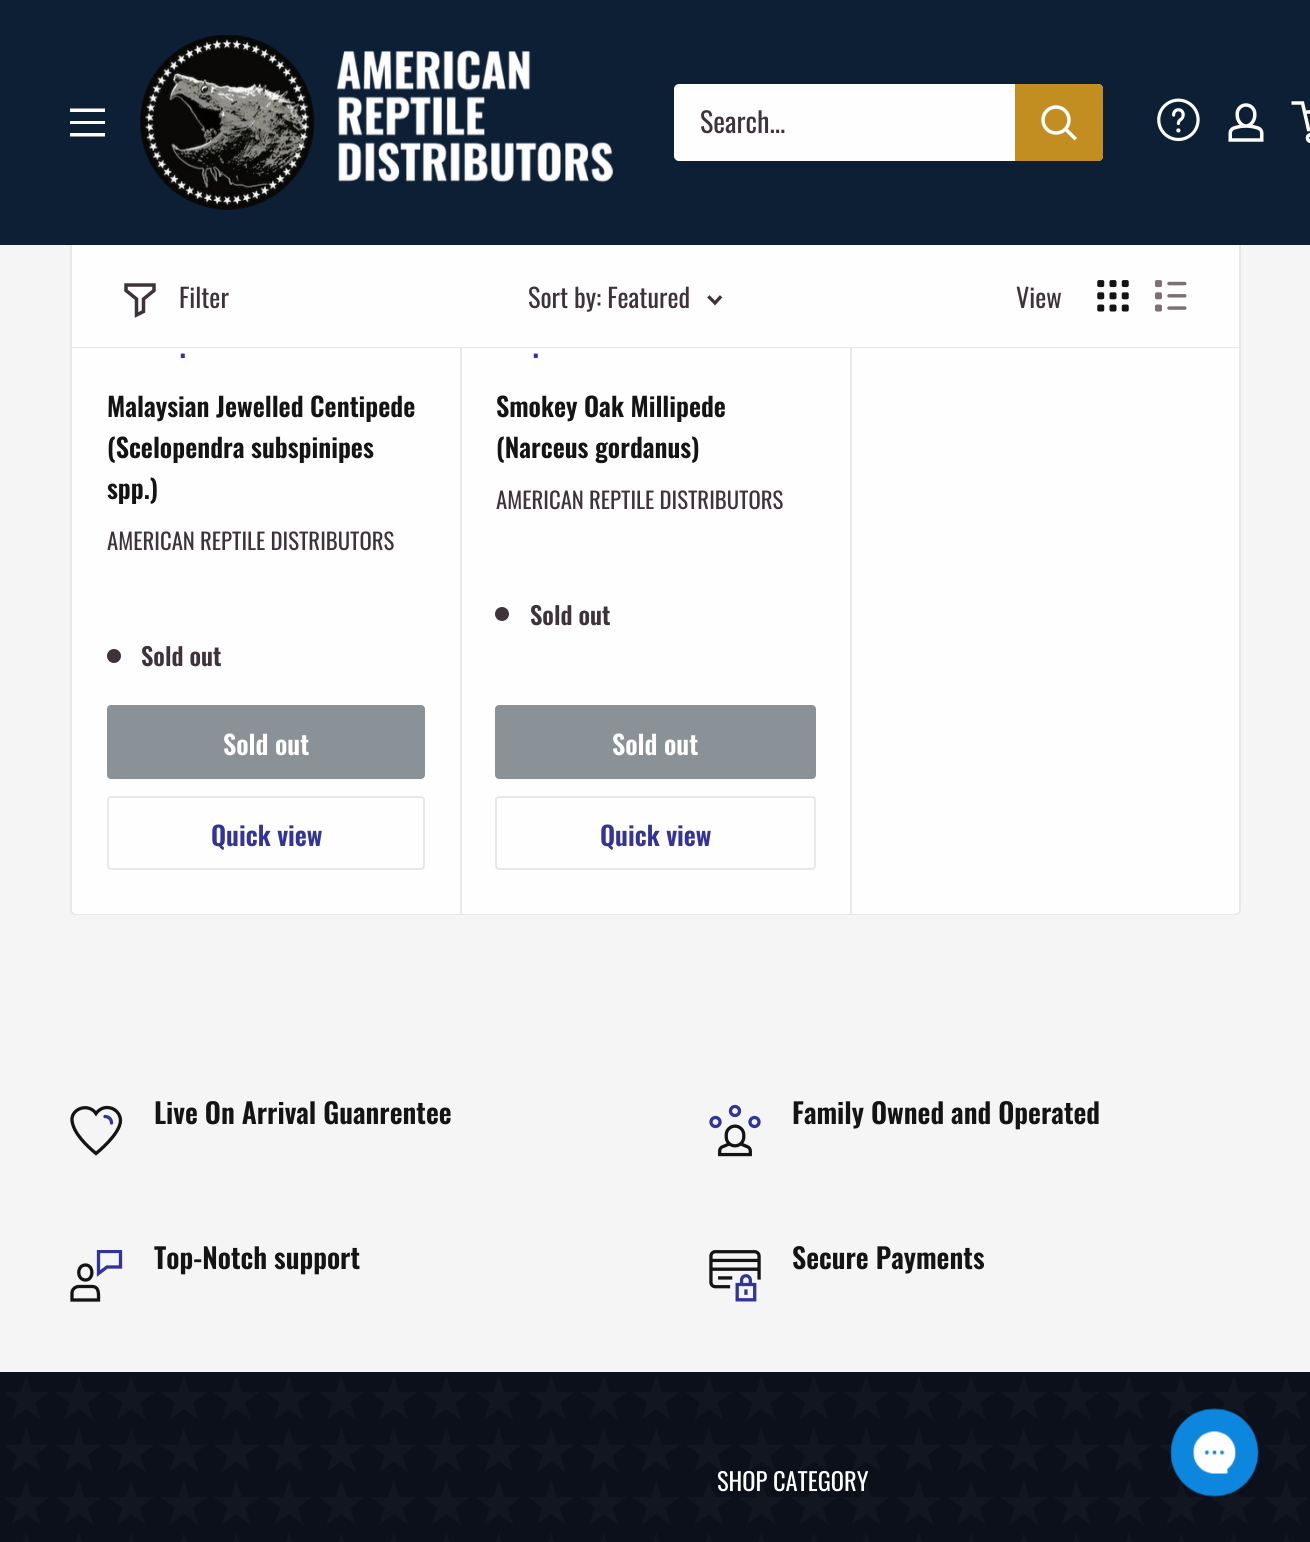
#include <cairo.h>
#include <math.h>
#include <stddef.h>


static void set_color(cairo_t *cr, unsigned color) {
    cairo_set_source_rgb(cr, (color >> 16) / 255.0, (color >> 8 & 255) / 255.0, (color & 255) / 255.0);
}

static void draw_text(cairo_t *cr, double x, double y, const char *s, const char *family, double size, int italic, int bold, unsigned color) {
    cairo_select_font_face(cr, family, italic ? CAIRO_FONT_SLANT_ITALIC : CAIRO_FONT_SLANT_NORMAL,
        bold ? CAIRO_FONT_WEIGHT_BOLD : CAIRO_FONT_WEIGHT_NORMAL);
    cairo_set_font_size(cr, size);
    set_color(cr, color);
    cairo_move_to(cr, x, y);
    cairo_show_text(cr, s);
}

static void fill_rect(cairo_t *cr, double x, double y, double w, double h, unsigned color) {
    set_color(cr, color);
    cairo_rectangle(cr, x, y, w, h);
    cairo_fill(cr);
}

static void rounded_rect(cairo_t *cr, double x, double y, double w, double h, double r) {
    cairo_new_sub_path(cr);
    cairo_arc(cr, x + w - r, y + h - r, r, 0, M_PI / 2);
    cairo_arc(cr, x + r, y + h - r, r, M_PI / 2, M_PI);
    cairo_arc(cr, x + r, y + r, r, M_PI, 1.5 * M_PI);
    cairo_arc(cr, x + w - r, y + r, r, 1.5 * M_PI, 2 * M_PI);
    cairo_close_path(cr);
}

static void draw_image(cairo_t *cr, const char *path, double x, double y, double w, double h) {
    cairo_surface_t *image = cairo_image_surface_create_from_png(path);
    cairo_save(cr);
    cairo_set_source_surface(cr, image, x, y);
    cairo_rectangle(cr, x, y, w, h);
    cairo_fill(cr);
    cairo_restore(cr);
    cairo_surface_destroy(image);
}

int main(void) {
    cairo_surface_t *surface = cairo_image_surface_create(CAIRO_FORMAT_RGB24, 1310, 1542);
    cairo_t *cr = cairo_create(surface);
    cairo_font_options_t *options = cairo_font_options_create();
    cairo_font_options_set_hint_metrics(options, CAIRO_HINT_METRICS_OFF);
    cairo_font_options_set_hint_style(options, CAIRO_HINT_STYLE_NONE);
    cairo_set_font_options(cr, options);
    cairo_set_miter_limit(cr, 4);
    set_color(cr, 0xF5F5F5);
    cairo_paint(cr);
    set_color(cr, 0xFEFEFE);
    cairo_new_path(cr);
    cairo_move_to(cr, 71, -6);
    cairo_line_to(cr, 1240, -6);
    cairo_line_to(cr, 1240, 910);
    cairo_curve_to(cr, 1240, 912, 1238, 914, 1236, 914);
    cairo_line_to(cr, 75, 914);
    cairo_curve_to(cr, 73, 914, 71, 912, 71, 910);
    cairo_close_path(cr);
    cairo_fill_preserve(cr);
    set_color(cr, 0xE8E8E8);
    cairo_stroke(cr);
    set_color(cr, 0xFEFEFE);
    rounded_rect(cr, 72, -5, 1167, 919, 5);
    cairo_fill(cr);
    cairo_new_path(cr);
    cairo_move_to(cr, 72, -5);
    cairo_line_to(cr, 460, -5);
    cairo_line_to(cr, 460, 914);
    cairo_line_to(cr, 77, 914);
    cairo_curve_to(cr, 74, 914, 72, 912, 72, 909);
    cairo_close_path(cr);
    cairo_fill(cr);
    set_color(cr, 0xE8E8E8);
    cairo_new_path(cr);
    cairo_move_to(cr, 75, 914);
    cairo_line_to(cr, 77, 914);
    cairo_line_to(cr, 462, 914);
    cairo_line_to(cr, 462, -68);
    cairo_line_to(cr, 460, -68);
    cairo_line_to(cr, 460, 914);
    cairo_close_path(cr);
    cairo_fill(cr);
    cairo_new_path(cr);
    cairo_move_to(cr, 462, 914);
    cairo_line_to(cr, 852, 914);
    cairo_line_to(cr, 852, -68);
    cairo_line_to(cr, 850, -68);
    cairo_line_to(cr, 850, 914);
    cairo_close_path(cr);
    cairo_fill(cr);
    fill_rect(cr, 0, 0, 1310, 245, 0x0D1F35);
    set_color(cr, 0xFEFEFE);
    cairo_set_fill_rule(cr, CAIRO_FILL_RULE_EVEN_ODD);
    cairo_new_path(cr);
    cairo_move_to(cr, 70, 133);
    cairo_line_to(cr, 105, 133);
    cairo_line_to(cr, 105, 136.5);
    cairo_line_to(cr, 70, 136.5);
    cairo_close_path(cr);
    cairo_move_to(cr, 70, 108.5);
    cairo_line_to(cr, 105, 108.5);
    cairo_line_to(cr, 105, 112);
    cairo_line_to(cr, 70, 112);
    cairo_close_path(cr);
    cairo_move_to(cr, 70, 121);
    cairo_line_to(cr, 105, 121);
    cairo_line_to(cr, 105, 124);
    cairo_line_to(cr, 70, 124);
    cairo_close_path(cr);
    cairo_fill(cr);
    draw_image(cr, "assets/img1.png", 140, 35, 473, 175);
    rounded_rect(cr, 674, 84, 429, 77, 5);
    cairo_fill(cr);
    draw_text(cr, 700, 133, "Search...", "Oswald", 28, 0, 0, 0x3F333B);
    set_color(cr, 0xC28E21);
    cairo_new_path(cr);
    cairo_move_to(cr, 1015, 84);
    cairo_line_to(cr, 1098, 84);
    cairo_curve_to(cr, 1101, 84, 1103, 86, 1103, 89);
    cairo_line_to(cr, 1103, 156);
    cairo_curve_to(cr, 1103, 159, 1101, 161, 1098, 161);
    cairo_line_to(cr, 1015, 161);
    cairo_close_path(cr);
    cairo_fill(cr);
    cairo_new_path(cr);
    cairo_move_to(cr, 1074.5, 138);
    cairo_line_to(cr, 1066, 129.5);
    set_color(cr, 0xFEFEFE);
    cairo_set_line_width(cr, 3.5);
    cairo_set_line_cap(cr, CAIRO_LINE_CAP_SQUARE);
    cairo_stroke(cr);
    cairo_arc(cr, 1056, 120, 13, 0, 2 * M_PI);
    cairo_set_line_cap(cr, CAIRO_LINE_CAP_BUTT);
    cairo_stroke(cr);
    draw_image(cr, "assets/img2.png", 1157, 98, 43, 44);
    draw_image(cr, "assets/img3.png", 1228, 103, 36, 39);
    cairo_arc(cr, 1311, 138, 3.5, 0, 2 * M_PI);
    cairo_stroke(cr);
    cairo_new_path(cr);
    cairo_move_to(cr, 1304.5, 112);
    cairo_line_to(cr, 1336.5, 112);
    cairo_line_to(cr, 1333.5, 129.5);
    cairo_line_to(cr, 1308.5, 129.5);
    cairo_line_to(cr, 1302.5, 103);
    cairo_line_to(cr, 1291.5, 103);
    cairo_stroke(cr);
    fill_rect(cr, 72, 347, 1167, 1, 0xE8E8E8);
    fill_rect(cr, 460, 245, 392, 102, 0xFEFEFE);
    cairo_new_path(cr);
    cairo_move_to(cr, 154, 290.5);
    cairo_line_to(cr, 143.5, 299);
    cairo_line_to(cr, 143.5, 311.5);
    cairo_line_to(cr, 136.5, 315);
    cairo_line_to(cr, 136.5, 299);
    cairo_line_to(cr, 126, 290.5);
    cairo_line_to(cr, 126, 285);
    cairo_line_to(cr, 154, 285);
    cairo_close_path(cr);
    set_color(cr, 0x3F333B);
    cairo_set_line_cap(cr, CAIRO_LINE_CAP_SQUARE);
    cairo_stroke(cr);
    draw_text(cr, 179, 308, "Filter", "Oswald", 26.25, 0, 0, 0x3F333B);
    draw_text(cr, 528, 308, "Sort by: Featured", "Oswald", 26.25, 0, 0, 0x3F333B);
    cairo_new_path(cr);
    cairo_move_to(cr, 720, 297.5);
    cairo_line_to(cr, 715, 303);
    cairo_line_to(cr, 709.5, 297.5);
    cairo_set_line_width(cr, 3.3);
    cairo_stroke(cr);
    draw_text(cr, 1016, 308, "View", "Oswald", 26.25, 0, 0, 0x3F333B);
    draw_image(cr, "assets/img4.png", 1097, 280, 32, 32);
    draw_image(cr, "assets/img5.png", 1155, 280, 32, 32);
    draw_text(cr, 179, 358, ".", "Oswald", 37, 0, 0, 0x333399);
    draw_text(cr, 107, 417, "Malaysian Jewelled Centipede", "Oswald SemiBold", 26.25, 0, 0, 0x151414);
    draw_text(cr, 107, 458, "(Scelopendra subspinipes", "Oswald SemiBold", 26.25, 0, 0, 0x151414);
    draw_text(cr, 107, 499, "spp.)", "Oswald SemiBold", 26.25, 0, 0, 0x151414);
    draw_text(cr, 107, 550, "AMERICAN REPTILE DISTRIBUTORS", "Oswald", 22.75, 0, 0, 0x3F333B);
    cairo_new_path(cr);
    cairo_arc(cr, 114, 656, 7, 0, 2 * M_PI);
    cairo_fill(cr);
    draw_text(cr, 141, 666, "Sold out", "Oswald SemiBold", 24.5, 0, 0, 0x3F333B);
    set_color(cr, 0x8A9297);
    rounded_rect(cr, 108, 706, 316, 72, 3);
    cairo_fill_preserve(cr);
    cairo_set_line_width(cr, 2);
    cairo_set_line_cap(cr, CAIRO_LINE_CAP_BUTT);
    cairo_stroke(cr);
    draw_text(cr, 223, 755, "Sold out", "Oswald SemiBold", 26.25, 0, 0, 0xFEFEFE);
    rounded_rect(cr, 108, 797, 316, 72, 3);
    set_color(cr, 0xE8E8E8);
    cairo_stroke(cr);
    draw_text(cr, 211, 846, "Quick view", "Oswald SemiBold", 26.25, 0, 0, 0x333399);
    draw_text(cr, 532, 358, ".", "Oswald", 37, 0, 0, 0x333399);
    draw_text(cr, 496, 417, "Smokey Oak Millipede", "Oswald SemiBold", 26.25, 0, 0, 0x151414);
    draw_text(cr, 496, 458, "(Narceus gordanus)", "Oswald SemiBold", 26.25, 0, 0, 0x151414);
    draw_text(cr, 496, 509, "AMERICAN REPTILE DISTRIBUTORS", "Oswald", 22.75, 0, 0, 0x3F333B);
    cairo_new_path(cr);
    cairo_arc(cr, 502, 614, 7, 0, 2 * M_PI);
    cairo_fill(cr);
    draw_text(cr, 530, 625, "Sold out", "Oswald SemiBold", 24.5, 0, 0, 0x3F333B);
    set_color(cr, 0x8A9297);
    rounded_rect(cr, 496, 706, 319, 72, 3);
    cairo_fill_preserve(cr);
    cairo_stroke(cr);
    draw_text(cr, 612, 755, "Sold out", "Oswald SemiBold", 26.25, 0, 0, 0xFEFEFE);
    rounded_rect(cr, 496, 797, 319, 72, 3);
    set_color(cr, 0xE8E8E8);
    cairo_stroke(cr);
    draw_text(cr, 600, 846, "Quick view", "Oswald SemiBold", 26.25, 0, 0, 0x333399);
    cairo_new_path(cr);
    cairo_move_to(cr, 107, 1107.5);
    cairo_curve_to(cr, 102.5, 1107.5, 98.5, 1110, 96, 1113.5);
    cairo_curve_to(cr, 88.5, 1102.5, 71, 1108.5, 72, 1120.5);
    cairo_curve_to(cr, 73.5, 1133.5, 87, 1146, 96, 1153.5);
    cairo_curve_to(cr, 96, 1153.5, 120.5, 1134, 120.5, 1120.5);
    cairo_curve_to(cr, 120.5, 1113.5, 114.5, 1107.5, 107, 1107.5);
    cairo_close_path(cr);
    set_color(cr, 0x151414);
    cairo_set_line_width(cr, 3.3);
    cairo_set_line_cap(cr, CAIRO_LINE_CAP_SQUARE);
    cairo_stroke(cr);
    cairo_new_path(cr);
    cairo_move_to(cr, 105, 1116.5);
    cairo_curve_to(cr, 108.5, 1116.5, 111.5, 1119, 111.5, 1123);
    set_color(cr, 0x333399);
    cairo_set_line_cap(cr, CAIRO_LINE_CAP_ROUND);
    cairo_stroke(cr);
    draw_text(cr, 154, 1124, "Live On Arrival Guanrentee", "Oswald SemiBold", 28, 0, 0, 0x151414);
    draw_image(cr, "assets/img6.png", 709, 1104, 52, 53);
    draw_text(cr, 792, 1124, "Family Owned and Operated", "Oswald SemiBold", 28, 0, 0, 0x151414);
    cairo_new_path(cr);
    cairo_move_to(cr, 92, 1286.5);
    cairo_line_to(cr, 79, 1286.5);
    cairo_curve_to(cr, 75, 1286.5, 72, 1289.5, 72, 1293);
    cairo_line_to(cr, 72, 1300);
    cairo_line_to(cr, 98.5, 1300);
    cairo_curve_to(cr, 98.5, 1294.5, 99.5, 1286.5, 92, 1286.5);
    cairo_close_path(cr);
    cairo_move_to(cr, 85.5, 1280);
    cairo_curve_to(cr, 76.5, 1280, 76.5, 1265, 85.5, 1265);
    cairo_curve_to(cr, 94, 1265, 94, 1280, 85.5, 1280);
    cairo_close_path(cr);
    cairo_set_line_cap(cr, CAIRO_LINE_CAP_SQUARE);
    cairo_stroke(cr);
    cairo_save(cr);
    cairo_set_fill_rule(cr, CAIRO_FILL_RULE_WINDING);
    cairo_rectangle(cr, 70, 1250, 53, 52);
    cairo_clip(cr);
    cairo_new_path(cr);
    cairo_move_to(cr, 98.5, 1251.5);
    cairo_line_to(cr, 98.5, 1273.5);
    cairo_line_to(cr, 107, 1267);
    cairo_line_to(cr, 120.5, 1267);
    cairo_line_to(cr, 120.5, 1251.5);
    cairo_close_path(cr);
    set_color(cr, 0x333399);
    cairo_stroke(cr);
    cairo_restore(cr);
    draw_text(cr, 154, 1269, "Top-Notch support", "Oswald SemiBold", 28, 0, 0, 0x151414);
    draw_image(cr, "assets/img7.png", 709, 1250, 52, 52);
    draw_text(cr, 792, 1269, "Secure Payments", "Oswald SemiBold", 28, 0, 0, 0x151414);
    fill_rect(cr, 0, 1372, 1310, 170, 0x0C101B);
    draw_image(cr, "assets/img8.png", 6, 1377, 1301, 165);
    draw_text(cr, 717, 1491, "SHOP CATEGORY", "Oswald", 24.5, 0, 0, 0xFEFEFE);
    draw_image(cr, "assets/img9.png", 1170, 1408, 89, 89);
    cairo_surface_write_to_png(surface, "output.png");
    cairo_font_options_destroy(options);
    cairo_destroy(cr);
    cairo_surface_destroy(surface);
    return 0;
}
